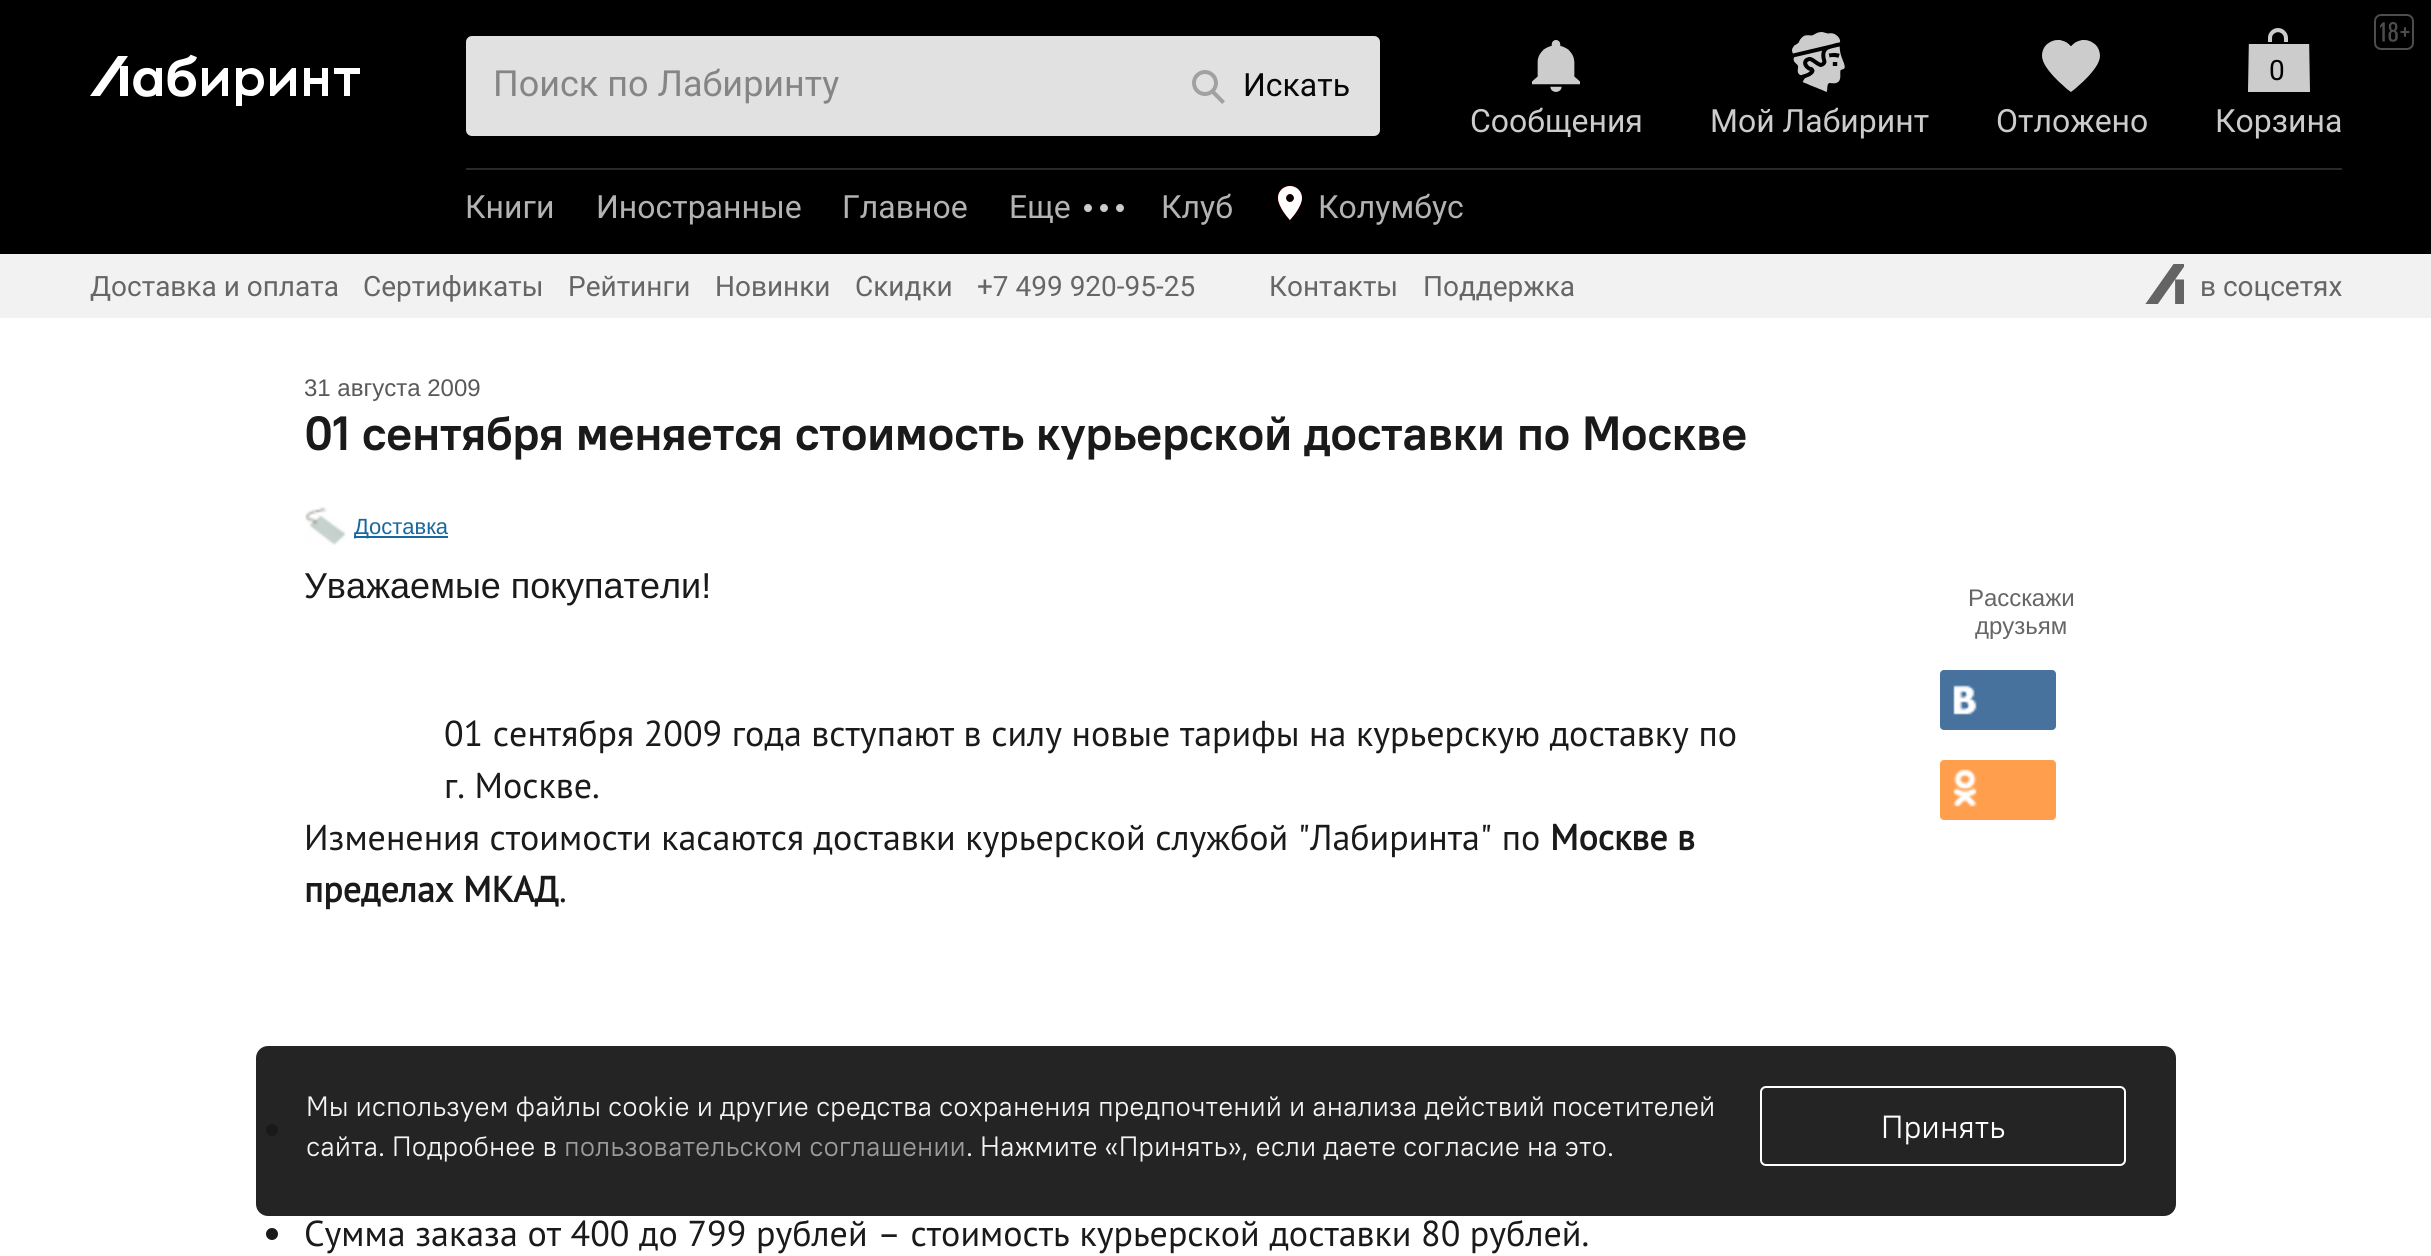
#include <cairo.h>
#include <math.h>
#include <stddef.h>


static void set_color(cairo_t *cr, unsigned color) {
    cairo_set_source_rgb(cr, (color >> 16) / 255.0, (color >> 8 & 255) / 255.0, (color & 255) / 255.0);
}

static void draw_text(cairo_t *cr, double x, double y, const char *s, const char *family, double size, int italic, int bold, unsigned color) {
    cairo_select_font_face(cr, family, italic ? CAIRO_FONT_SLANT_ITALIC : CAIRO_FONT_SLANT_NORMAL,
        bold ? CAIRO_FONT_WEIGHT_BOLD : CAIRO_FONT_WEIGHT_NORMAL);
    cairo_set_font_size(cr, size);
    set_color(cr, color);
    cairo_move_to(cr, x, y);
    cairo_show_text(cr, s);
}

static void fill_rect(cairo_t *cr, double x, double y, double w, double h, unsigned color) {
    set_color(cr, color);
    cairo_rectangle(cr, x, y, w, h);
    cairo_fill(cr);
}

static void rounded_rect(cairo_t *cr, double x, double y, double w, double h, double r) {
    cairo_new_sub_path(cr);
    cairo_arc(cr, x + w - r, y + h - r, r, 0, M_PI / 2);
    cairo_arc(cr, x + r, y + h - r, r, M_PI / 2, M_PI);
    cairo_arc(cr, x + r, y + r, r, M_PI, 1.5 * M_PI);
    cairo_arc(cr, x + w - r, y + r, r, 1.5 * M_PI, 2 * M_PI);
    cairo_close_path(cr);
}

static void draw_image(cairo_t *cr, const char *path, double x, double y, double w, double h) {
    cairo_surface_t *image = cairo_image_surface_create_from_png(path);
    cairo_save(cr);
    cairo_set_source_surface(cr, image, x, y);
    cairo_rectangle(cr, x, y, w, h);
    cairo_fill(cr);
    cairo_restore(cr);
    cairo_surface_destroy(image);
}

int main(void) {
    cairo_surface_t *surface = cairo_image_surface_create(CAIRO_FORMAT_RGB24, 2431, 1256);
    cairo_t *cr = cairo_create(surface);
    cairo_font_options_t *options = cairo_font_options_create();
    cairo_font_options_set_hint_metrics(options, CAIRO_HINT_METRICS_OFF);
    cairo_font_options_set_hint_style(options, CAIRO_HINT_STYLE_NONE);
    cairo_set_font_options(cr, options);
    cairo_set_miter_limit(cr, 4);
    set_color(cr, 0xFFFFFF);
    cairo_paint(cr);
    fill_rect(cr, 0, 0, 2431, 254, 0x000000);
    draw_image(cr, "assets/img1.png", 2374, 14, 40, 36);
    draw_image(cr, "assets/img2.png", 90, 54, 270, 52);
    set_color(cr, 0xE1E1E1);
    rounded_rect(cr, 466, 36, 914, 100, 6);
    cairo_fill(cr);
    draw_text(cr, 493, 96, "Поиск по Лабиринту", "Roboto", 36, 0, 0, 0x858585);
    draw_image(cr, "assets/img3.png", 1192, 70, 33, 34);
    draw_text(cr, 1243, 96, "Искать", "Roboto", 32, 0, 0, 0x070707);
    draw_image(cr, "assets/img4.png", 1532, 40, 48, 52);
    draw_text(cr, 1470, 132, "Сообщения", "Roboto", 32, 0, 0, 0xCCCCCC);
    draw_image(cr, "assets/img5.png", 1792, 32, 53, 60);
    draw_text(cr, 1710, 132, "Mой Лабиринт", "Roboto", 32, 0, 0, 0xCCCCCC);
    draw_image(cr, "assets/img6.png", 2042, 40, 58, 52);
    draw_text(cr, 1996, 132, "Отложено", "Roboto", 32, 0, 0, 0xCCCCCC);
    draw_image(cr, "assets/img7.png", 2248, 28, 62, 64);
    draw_text(cr, 2269, 80, "0", "Roboto", 28, 0, 0, 0x000000);
    draw_text(cr, 2215, 132, "Корзина", "Roboto", 32, 0, 0, 0xCCCCCC);
    fill_rect(cr, 466, 168, 1876, 2, 0x292929);
    draw_text(cr, 465, 218, "Книги", "Roboto", 32, 0, 0, 0xB3B3B3);
    draw_text(cr, 596, 218, "Иностранные", "Roboto", 32, 0, 0, 0xB3B3B3);
    draw_text(cr, 842, 218, "Главное", "Roboto", 32, 0, 0, 0xB3B3B3);
    draw_text(cr, 1009, 218, "Еще", "Roboto", 32, 0, 0, 0xB3B3B3);
    draw_image(cr, "assets/img8.png", 1084, 204, 40, 8);
    draw_text(cr, 1161, 218, "Клуб", "Roboto", 32, 0, 0, 0xB3B3B3);
    draw_image(cr, "assets/img9.png", 1278, 186, 24, 34);
    draw_image(cr, "assets/img10.png", 1278, 186, 24, 34);
    draw_text(cr, 1318, 218, "Колумбус", "Roboto", 32, 0, 0, 0xB3B3B3);
    fill_rect(cr, 0, 254, 2431, 64, 0xF2F2F2);
    draw_text(cr, 90, 296, "Доставка и оплата", "Roboto", 28, 0, 0, 0x666666);
    draw_text(cr, 363, 296, "Сертификаты", "Roboto", 28, 0, 0, 0x666666);
    draw_text(cr, 568, 296, "Рейтинги", "Roboto", 28, 0, 0, 0x666666);
    draw_text(cr, 715, 296, "Новинки", "Roboto", 28, 0, 0, 0x666666);
    draw_text(cr, 855, 296, "Скидки", "Roboto", 28, 0, 0, 0x666666);
    draw_text(cr, 977, 296, "+7 499 920-95-25", "Roboto", 28, 0, 0, 0x666666);
    draw_text(cr, 1269, 296, "Контакты", "Roboto", 28, 0, 0, 0x666666);
    draw_text(cr, 1423, 296, "Поддержка", "Roboto", 28, 0, 0, 0x666666);
    draw_image(cr, "assets/img11.png", 2145, 264, 39, 40);
    draw_text(cr, 2200, 296, "в соцсетях", "Roboto", 28, 0, 0, 0x666666);
    set_color(cr, 0x191A1A);
    cairo_new_path(cr);
    cairo_arc(cr, 272, 1130, 6, 0, 2 * M_PI);
    cairo_fill(cr);
    cairo_set_source_rgba(cr, 0.102, 0.102, 0.102, 0.95);
    rounded_rect(cr, 256, 1046, 1920, 170, 12);
    cairo_fill(cr);
    draw_text(cr, 306, 1116, "Мы используем файлы cookie и другие средства сохранения предпочтений и анализа действий посетителей", "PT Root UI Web", 28, 0, 0, 0xF4F4F4);
    draw_text(cr, 306, 1156, "сайта. Подробнее в", "PT Root UI Web", 28, 0, 0, 0xF4F4F4);
    draw_text(cr, 564, 1156, "пользовательском соглашении", "PT Root UI Web", 28, 0, 0, 0x9D9D9D);
    draw_text(cr, 966, 1156, ". Нажмите «Принять», если даете согласие на это.", "PT Root UI Web", 28, 0, 0, 0xF4F4F4);
    rounded_rect(cr, 1761, 1087, 364, 78, 5);
    set_color(cr, 0xFFFFFF);
    cairo_stroke(cr);
    draw_text(cr, 1881, 1138, "Принять", "PT Root UI Web", 32, 0, 0, 0xFFFFFF);
    draw_text(cr, 304, 396, "31 августа 2009", "Liberation Sans", 24, 0, 0, 0x595959);
    draw_text(cr, 304, 450, "01 сентября меняется стоимость курьерской доставки по Москве", "PT Root UI Web", 48, 0, 1, 0x1A1A1A);
    draw_image(cr, "assets/img12.png", 305, 506, 41, 39);
    fill_rect(cr, 354, 536, 94, 2, 0x1868A0);
    draw_text(cr, 354, 534, "Доставка", "Liberation Sans", 22, 0, 0, 0x1868A0);
    draw_text(cr, 304, 598, "Уважаемые покупатели!", "Liberation Sans", 36, 0, 0, 0x1A1A1A);
    draw_text(cr, 444, 746, "01 сентября 2009 года вступают в силу новые тарифы на курьерскую доставку по", "PT Sans", 36, 0, 0, 0x1A1A1A);
    draw_text(cr, 444, 798, "г. Москве.", "PT Sans", 36, 0, 0, 0x1A1A1A);
    draw_text(cr, 304, 850, "Изменения стоимости касаются доставки курьерской службой \"Лабиринта\" по", "PT Sans", 36, 0, 0, 0x1A1A1A);
    draw_text(cr, 1550, 850, "Москве в", "PT Sans", 36, 0, 1, 0x1A1A1A);
    draw_text(cr, 304, 902, "пределах МКАД", "PT Sans", 36, 0, 1, 0x1A1A1A);
    draw_text(cr, 559, 902, ".", "PT Sans", 36, 0, 0, 0x1A1A1A);
    set_color(cr, 0x191A1A);
    cairo_new_path(cr);
    cairo_arc(cr, 272, 1234, 6, 0, 2 * M_PI);
    cairo_fill(cr);
    draw_text(cr, 304, 1246, "Сумма заказа от 400 до 799 рублей – стоимость курьерской доставки 80 рублей.", "PT Sans", 36, 0, 0, 0x1A1A1A);
    draw_text(cr, 1968, 606, "Расскажи", "Liberation Sans", 24, 0, 0, 0x666666);
    draw_text(cr, 1975, 634, "друзьям", "Liberation Sans", 24, 0, 0, 0x666666);
    set_color(cr, 0x48729E);
    rounded_rect(cr, 1940, 670, 116, 60, 4);
    cairo_fill(cr);
    draw_image(cr, "assets/img13.png", 1953, 685, 24, 30);
    set_color(cr, 0xFF9F4D);
    rounded_rect(cr, 1940, 760, 116, 60, 4);
    cairo_fill(cr);
    draw_image(cr, "assets/img14.png", 1953, 769, 24, 38);
    cairo_surface_write_to_png(surface, "output.png");
    cairo_font_options_destroy(options);
    cairo_destroy(cr);
    cairo_surface_destroy(surface);
    return 0;
}
